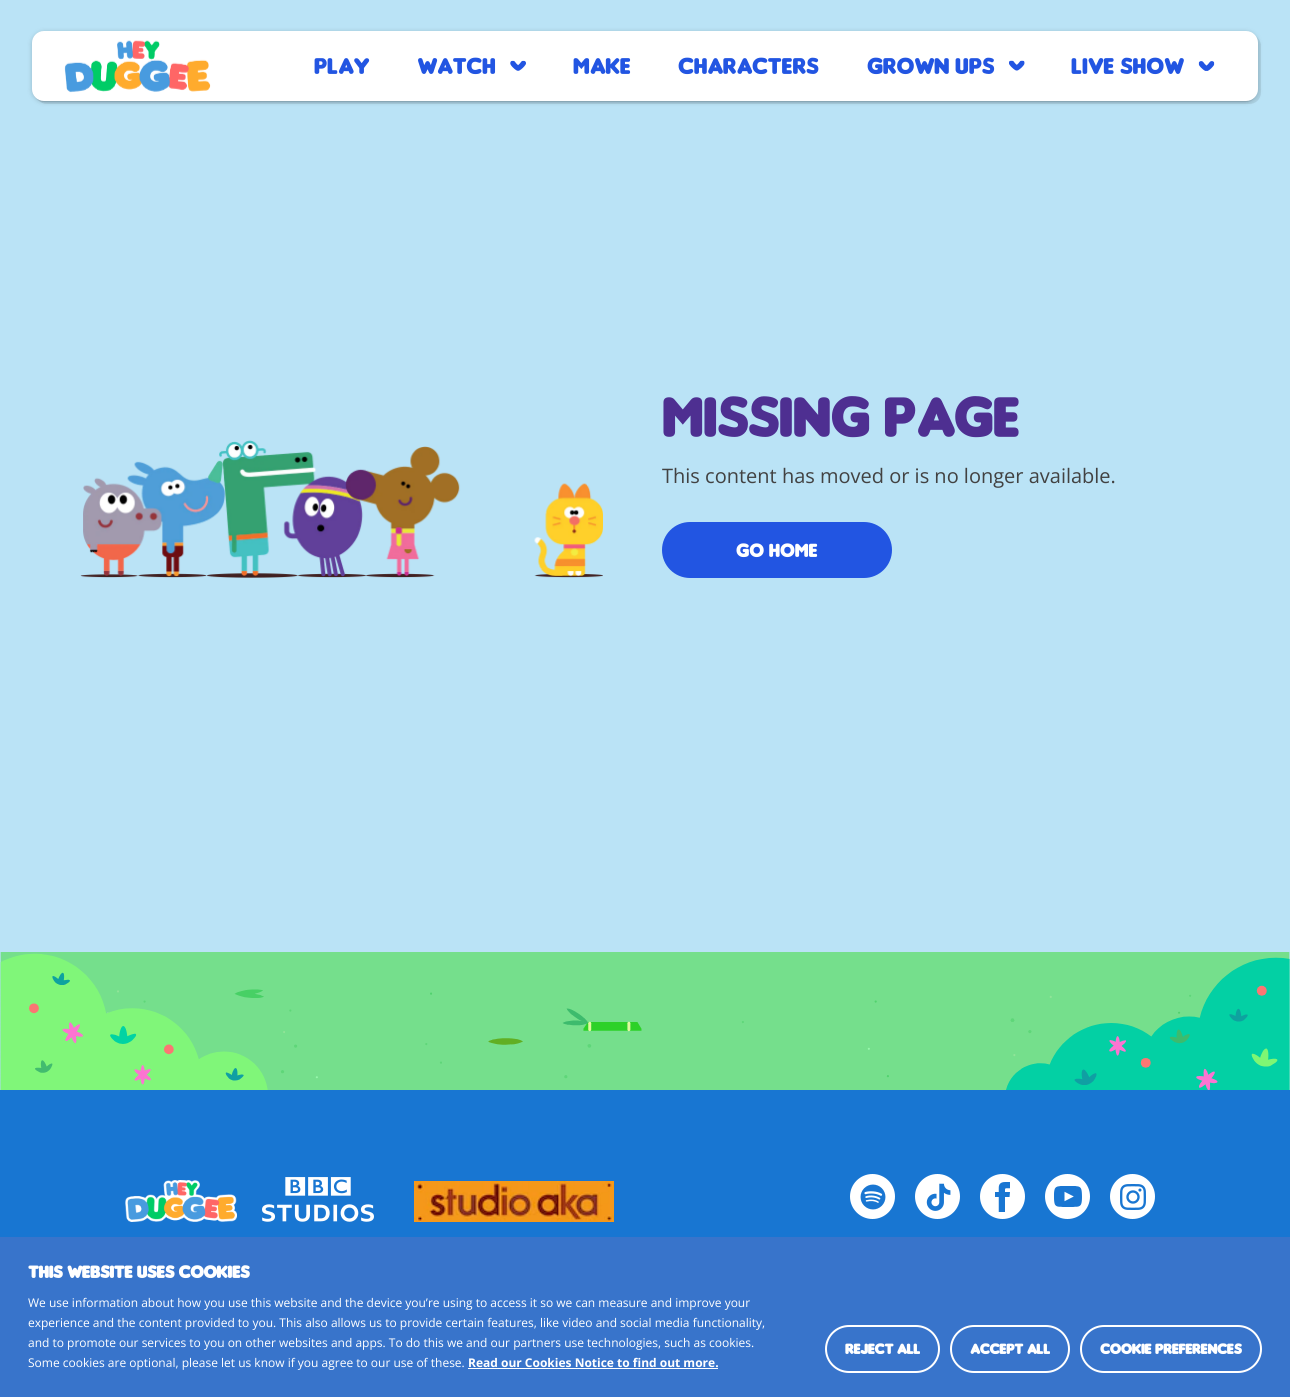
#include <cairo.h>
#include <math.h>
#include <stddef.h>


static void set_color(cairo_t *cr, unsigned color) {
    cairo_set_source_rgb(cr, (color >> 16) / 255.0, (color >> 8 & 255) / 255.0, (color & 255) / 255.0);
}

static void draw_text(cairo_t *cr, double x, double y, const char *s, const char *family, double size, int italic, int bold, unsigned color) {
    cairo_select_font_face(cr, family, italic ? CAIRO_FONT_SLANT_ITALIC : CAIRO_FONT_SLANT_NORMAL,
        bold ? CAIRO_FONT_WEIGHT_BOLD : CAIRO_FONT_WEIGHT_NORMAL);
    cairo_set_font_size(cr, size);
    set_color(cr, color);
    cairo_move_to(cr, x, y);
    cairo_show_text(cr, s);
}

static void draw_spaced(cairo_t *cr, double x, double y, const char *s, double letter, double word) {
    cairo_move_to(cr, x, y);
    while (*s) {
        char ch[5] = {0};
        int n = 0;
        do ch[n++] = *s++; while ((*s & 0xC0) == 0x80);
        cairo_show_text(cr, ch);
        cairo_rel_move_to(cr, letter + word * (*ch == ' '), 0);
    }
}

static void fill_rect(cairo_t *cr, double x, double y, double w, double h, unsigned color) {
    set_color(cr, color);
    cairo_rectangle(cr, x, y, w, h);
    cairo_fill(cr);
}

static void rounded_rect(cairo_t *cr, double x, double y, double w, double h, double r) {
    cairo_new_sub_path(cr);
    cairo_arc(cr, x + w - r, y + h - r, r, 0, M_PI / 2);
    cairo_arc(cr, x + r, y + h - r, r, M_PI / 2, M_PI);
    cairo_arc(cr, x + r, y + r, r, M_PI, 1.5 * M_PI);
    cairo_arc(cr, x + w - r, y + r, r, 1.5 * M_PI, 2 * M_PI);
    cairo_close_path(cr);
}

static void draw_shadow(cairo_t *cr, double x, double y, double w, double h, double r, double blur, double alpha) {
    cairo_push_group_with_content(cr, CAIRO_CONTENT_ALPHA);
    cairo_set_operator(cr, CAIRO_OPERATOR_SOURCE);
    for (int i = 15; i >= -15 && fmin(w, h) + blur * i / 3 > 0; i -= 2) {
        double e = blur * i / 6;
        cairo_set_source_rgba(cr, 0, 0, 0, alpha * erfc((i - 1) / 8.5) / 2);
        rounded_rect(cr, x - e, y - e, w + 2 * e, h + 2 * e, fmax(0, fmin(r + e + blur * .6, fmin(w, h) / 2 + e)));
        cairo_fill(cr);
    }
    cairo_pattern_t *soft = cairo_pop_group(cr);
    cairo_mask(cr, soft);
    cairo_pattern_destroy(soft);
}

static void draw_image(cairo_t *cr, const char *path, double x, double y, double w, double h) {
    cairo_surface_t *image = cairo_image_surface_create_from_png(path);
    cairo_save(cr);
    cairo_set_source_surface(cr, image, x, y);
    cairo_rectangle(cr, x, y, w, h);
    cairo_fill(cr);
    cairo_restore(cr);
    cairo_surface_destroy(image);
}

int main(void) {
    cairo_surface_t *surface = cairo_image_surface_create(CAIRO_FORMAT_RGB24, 1290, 1397);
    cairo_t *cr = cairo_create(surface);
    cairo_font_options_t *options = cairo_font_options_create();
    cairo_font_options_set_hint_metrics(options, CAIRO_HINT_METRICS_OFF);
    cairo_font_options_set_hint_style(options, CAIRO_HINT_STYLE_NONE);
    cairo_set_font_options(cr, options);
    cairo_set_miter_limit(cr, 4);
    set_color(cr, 0xBAE3F6);
    cairo_paint(cr);
    set_color(cr, 0x000000);
    draw_shadow(cr, 32, 32, 1226, 70, 12, 2.5, 0.2);
    draw_shadow(cr, 34, 36, 1222, 66, 10, 0.5, 0.12);
    cairo_set_source_rgba(cr, 0, 0, 0, 0.08);
    cairo_new_path(cr);
    cairo_move_to(cr, 37, 98);
    cairo_curve_to(cr, 39, 102, 43, 104, 47, 104);
    cairo_line_to(cr, 1249, 104);
    cairo_curve_to(cr, 1256, 104, 1261, 99, 1261, 92);
    cairo_line_to(cr, 1261, 46);
    cairo_curve_to(cr, 1261, 42, 1259, 39, 1256, 36);
    cairo_curve_to(cr, 1257, 38, 1258, 40, 1258, 43);
    cairo_line_to(cr, 1258, 89);
    cairo_curve_to(cr, 1258, 95, 1253, 101, 1246, 101);
    cairo_line_to(cr, 44, 101);
    cairo_curve_to(cr, 41, 101, 39, 100, 37, 98);
    cairo_close_path(cr);
    cairo_fill(cr);
    set_color(cr, 0xFFFFFF);
    rounded_rect(cr, 32, 31, 1226, 70, 12);
    cairo_fill(cr);
    draw_image(cr, "assets/img1.png", 64, 40, 147, 53);
    draw_text(cr, 314, 74, "Play", "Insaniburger", 24, 0, 0, 0x2255E2);
    draw_text(cr, 417, 74, "Watch", "Insaniburger", 24, 0, 0, 0x2255E2);
    draw_image(cr, "assets/img2.png", 510, 60, 16, 11);
    draw_text(cr, 573, 74, "Make", "Insaniburger", 24, 0, 0, 0x2255E2);
    draw_text(cr, 678, 74, "Characters", "Insaniburger", 24, 0, 0, 0x2255E2);
    draw_text(cr, 867, 74, "Grown Ups", "Insaniburger", 24, 0, 0, 0x2255E2);
    draw_image(cr, "assets/img3.png", 1009, 60, 16, 11);
    draw_text(cr, 1071, 74, "Live Show", "Insaniburger", 24, 0, 0, 0x2255E2);
    draw_image(cr, "assets/img4.png", 1198, 61, 17, 10);
    draw_image(cr, "assets/img5.png", 80, 440, 523, 138);
    cairo_set_font_size(cr, 60);
    set_color(cr, 0x4E2F91);
    draw_spaced(cr, 662, 437, "Missing Page", -0.6, 0);
    draw_text(cr, 662, 483, "This content has moved or is no longer available.", "Open Sans", 20, 0, 0, 0x424242);
    set_color(cr, 0x2255E2);
    rounded_rect(cr, 662, 522, 230, 56, 28);
    cairo_fill(cr);
    draw_text(cr, 736, 557, "Go Home", "Insaniburger", 20, 0, 0, 0xFFFFFF);
    draw_image(cr, "assets/img6.png", 0, 952, 1290, 138);
    fill_rect(cr, 0, 1090, 1290, 147, 0x1876D2);
    draw_image(cr, "assets/img7.png", 125, 1180, 112, 42);
    draw_image(cr, "assets/img8.png", 262, 1177, 112, 45);
    draw_image(cr, "assets/img9.png", 414, 1181, 200, 41);
    set_color(cr, 0xFFFFFF);
    cairo_arc(cr, 872.5, 1196.5, 22.5, 0, 2 * M_PI);
    cairo_fill(cr);
    draw_image(cr, "assets/img10.png", 860, 1184, 26, 26);
    cairo_arc(cr, 937.5, 1196.5, 22.5, 0, 2 * M_PI);
    cairo_fill(cr);
    draw_image(cr, "assets/img11.png", 926, 1183, 25, 28);
    cairo_arc(cr, 1002.5, 1196.5, 22.5, 0, 2 * M_PI);
    cairo_fill(cr);
    draw_image(cr, "assets/img12.png", 995, 1182, 15, 30);
    cairo_arc(cr, 1067.5, 1196.5, 22.5, 0, 2 * M_PI);
    cairo_fill(cr);
    draw_image(cr, "assets/img13.png", 1054, 1186, 28, 21);
    cairo_arc(cr, 1132.5, 1196.5, 22.5, 0, 2 * M_PI);
    cairo_fill(cr);
    draw_image(cr, "assets/img14.png", 1120, 1184, 26, 26);
    fill_rect(cr, 0, 1237, 1290, 160, 0x3874CB);
    draw_text(cr, 28, 1278, "THIS WEBSITE USES COOKIES", "Insaniburger", 18, 0, 1, 0xFFFFFF);
    draw_text(cr, 28, 1307, "We use information about how you use this website and the device you’re using to access it so we can measure and improve your", "Open Sans", 12, 0, 0, 0xFFFFFF);
    draw_text(cr, 28, 1327, "experience and the content provided to you. This also allows us to provide certain features, like video and social media functionality,", "Open Sans", 12, 0, 0, 0xFFFFFF);
    draw_text(cr, 28, 1347, "and to promote our services to you on other websites and apps. To do this we and our partners use technologies, such as cookies.", "Open Sans", 12, 0, 0, 0xFFFFFF);
    draw_text(cr, 28, 1367, "Some cookies are optional, please let us know if you agree to our use of these.", "Open Sans", 12, 0, 0, 0xFFFFFF);
    draw_text(cr, 468, 1367, "Read our Cookies Notice to find out more.", "Open Sans", 12, 0, 1, 0xFFFFFF);
    fill_rect(cr, 468, 1368, 250, 1, 0xFFFFFF);
    rounded_rect(cr, 826, 1326, 113, 46, 23);
    cairo_stroke(cr);
    draw_text(cr, 845, 1354, "REJECT ALL", "Insaniburger", 15, 0, 1, 0xFFFFFF);
    rounded_rect(cr, 951, 1326, 118, 46, 23);
    cairo_stroke(cr);
    draw_text(cr, 970, 1354, "ACCEPT ALL", "Insaniburger", 15, 0, 1, 0xFFFFFF);
    rounded_rect(cr, 1081, 1326, 180, 46, 23);
    cairo_stroke(cr);
    draw_text(cr, 1100, 1354, "COOKIE PREFERENCES", "Insaniburger", 15, 0, 1, 0xFFFFFF);
    cairo_surface_write_to_png(surface, "output.png");
    cairo_font_options_destroy(options);
    cairo_destroy(cr);
    cairo_surface_destroy(surface);
    return 0;
}
